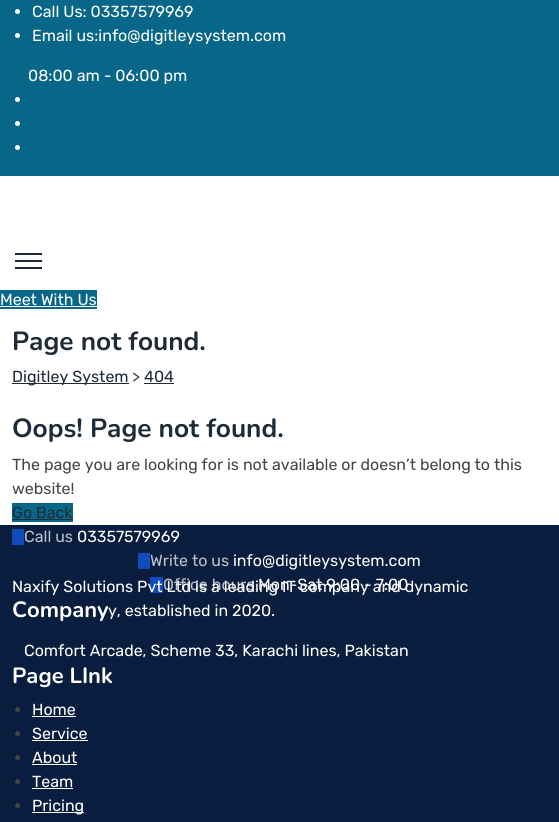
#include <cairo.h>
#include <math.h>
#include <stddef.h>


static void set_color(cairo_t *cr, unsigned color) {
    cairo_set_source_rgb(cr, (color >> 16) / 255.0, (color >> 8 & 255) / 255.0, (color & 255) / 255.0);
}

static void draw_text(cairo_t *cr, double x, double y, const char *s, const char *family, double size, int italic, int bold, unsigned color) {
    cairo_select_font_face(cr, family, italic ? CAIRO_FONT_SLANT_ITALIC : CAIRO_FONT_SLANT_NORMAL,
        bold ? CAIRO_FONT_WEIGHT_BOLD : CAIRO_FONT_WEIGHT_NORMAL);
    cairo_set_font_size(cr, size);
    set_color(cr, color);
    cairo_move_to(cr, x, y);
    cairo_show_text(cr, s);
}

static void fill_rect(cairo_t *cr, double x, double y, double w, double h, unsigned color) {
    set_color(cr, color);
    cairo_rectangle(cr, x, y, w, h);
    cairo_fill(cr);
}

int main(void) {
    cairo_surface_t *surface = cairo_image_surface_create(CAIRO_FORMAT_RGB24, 559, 822);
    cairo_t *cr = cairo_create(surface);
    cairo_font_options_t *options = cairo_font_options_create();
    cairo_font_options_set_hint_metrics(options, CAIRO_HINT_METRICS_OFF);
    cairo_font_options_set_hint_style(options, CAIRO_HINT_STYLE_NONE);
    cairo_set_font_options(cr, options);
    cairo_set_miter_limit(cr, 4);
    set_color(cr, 0xFFFFFF);
    cairo_paint(cr);
    fill_rect(cr, 0, 0, 559, 176, 0x086789);
    set_color(cr, 0xFFFFFF);
    cairo_arc(cr, 17.5, 11.5, 2.5, 0, 2 * M_PI);
    cairo_fill(cr);
    draw_text(cr, 32, 17, "Call Us: 03357579969", "Rubik", 16, 0, 0, 0xFFFFFF);
    cairo_new_path(cr);
    cairo_arc(cr, 17.5, 35.5, 2.5, 0, 2 * M_PI);
    cairo_fill(cr);
    draw_text(cr, 32, 41, "Email us:info@digitleysystem.com", "Rubik", 16, 0, 0, 0xFFFFFF);
    draw_text(cr, 28, 81, "08:00 am - 06:00 pm", "Rubik", 16, 0, 0, 0xFFFFFF);
    cairo_new_path(cr);
    cairo_arc(cr, 17.5, 99.5, 2.5, 0, 2 * M_PI);
    cairo_fill(cr);
    cairo_arc(cr, 17.5, 123.5, 2.5, 0, 2 * M_PI);
    cairo_fill(cr);
    cairo_arc(cr, 17.5, 147.5, 2.5, 0, 2 * M_PI);
    cairo_fill(cr);
    fill_rect(cr, 15, 253, 27, 2, 0x1D2C38);
    fill_rect(cr, 15, 260, 27, 2, 0x1D2C38);
    fill_rect(cr, 15, 267, 27, 2, 0x1D2C38);
    fill_rect(cr, 0, 290, 97, 19, 0x086789);
    draw_text(cr, 0, 305, "Meet With Us", "Rubik", 16, 0, 0, 0xFFFFFF);
    fill_rect(cr, 0, 306, 97, 1, 0xFFFFFF);
    draw_text(cr, 12, 350, "Page not found.", "Nunito ExtraLight", 26.25, 0, 0, 0x1D2C38);
    fill_rect(cr, 12, 383, 117, 1, 0x1D2C38);
    draw_text(cr, 12, 382, "Digitley System", "Rubik", 16, 0, 0, 0x1D2C38);
    draw_text(cr, 132, 382, ">", "Rubik", 16, 0, 0, 0x454545);
    draw_text(cr, 144, 382, "404", "Rubik", 16, 0, 0, 0x1D2C38);
    fill_rect(cr, 144, 383, 30, 1, 0x1D2C38);
    draw_text(cr, 12, 437, "Oops! Page not found.", "Nunito ExtraLight", 26.25, 0, 0, 0x1D2C38);
    draw_text(cr, 12, 470, "The page you are looking for is not available or doesn’t belong to this", "Rubik", 16, 0, 0, 0x454545);
    draw_text(cr, 12, 494, "website!", "Rubik", 16, 0, 0, 0x454545);
    fill_rect(cr, 12, 503, 61, 19, 0x086789);
    draw_text(cr, 12, 518, "Go Back", "Rubik", 16, 0, 0, 0x1D2C38);
    fill_rect(cr, 12, 519, 61, 1, 0x1D2C38);
    fill_rect(cr, 0, 525, 559, 297, 0x091D3E);
    fill_rect(cr, 12, 529, 12, 16, 0x104CBA);
    draw_text(cr, 24, 542, "Call us", "Rubik", 16, 0, 0, 0xBDC2CB);
    draw_text(cr, 77, 542, "03357579969", "Rubik", 16, 0, 0, 0xFFFFFF);
    fill_rect(cr, 138, 553, 12, 16, 0x104CBA);
    draw_text(cr, 150, 566, "Write to us", "Rubik", 16, 0, 0, 0xBDC2CB);
    draw_text(cr, 233, 566, "info@digitleysystem.com", "Rubik", 16, 0, 0, 0xFFFFFF);
    fill_rect(cr, 150, 577, 13, 16, 0x104CBA);
    draw_text(cr, 163, 590, "Office hours", "Rubik", 16, 0, 0, 0xBDC2CB);
    draw_text(cr, 258, 590, "Mon-Sat 9:00 - 7:00", "Rubik", 16, 0, 0, 0xFFFFFF);
    draw_text(cr, 12, 592, "Naxify Solutions Pvt Ltd is a leading IT company and dynamic", "Rubik", 16, 0, 0, 0xFFFFFF);
    draw_text(cr, 12, 617, "Company", "Nunito ExtraLight", 22, 0, 0, 0xFFFFFF);
    draw_text(cr, 108, 616, "y, established in 2020.", "Rubik", 16, 0, 0, 0xFFFFFF);
    draw_text(cr, 24, 656, "Comfort Arcade, Scheme 33, Karachi lines, Pakistan", "Rubik", 16, 0, 0, 0xFFFFFF);
    draw_text(cr, 12, 683, "Page LInk", "Nunito ExtraLight", 22, 0, 0, 0xFFFFFF);
    set_color(cr, 0x454545);
    cairo_new_path(cr);
    cairo_arc(cr, 17.5, 709.5, 2.5, 0, 2 * M_PI);
    cairo_fill(cr);
    draw_text(cr, 32, 715, "Home", "Rubik", 16, 0, 0, 0xFFFFFF);
    fill_rect(cr, 32, 716, 44, 1, 0xFFFFFF);
    set_color(cr, 0x454545);
    cairo_new_path(cr);
    cairo_arc(cr, 17.5, 733.5, 2.5, 0, 2 * M_PI);
    cairo_fill(cr);
    draw_text(cr, 32, 739, "Service", "Rubik", 16, 0, 0, 0xFFFFFF);
    fill_rect(cr, 32, 740, 56, 1, 0xFFFFFF);
    set_color(cr, 0x454545);
    cairo_new_path(cr);
    cairo_arc(cr, 17.5, 757.5, 2.5, 0, 2 * M_PI);
    cairo_fill(cr);
    draw_text(cr, 32, 763, "About", "Rubik", 16, 0, 0, 0xFFFFFF);
    fill_rect(cr, 32, 764, 45, 1, 0xFFFFFF);
    set_color(cr, 0x454545);
    cairo_new_path(cr);
    cairo_arc(cr, 17.5, 781.5, 2.5, 0, 2 * M_PI);
    cairo_fill(cr);
    draw_text(cr, 32, 787, "Team", "Rubik", 16, 0, 0, 0xFFFFFF);
    fill_rect(cr, 32, 788, 41, 1, 0xFFFFFF);
    set_color(cr, 0x454545);
    cairo_new_path(cr);
    cairo_arc(cr, 17.5, 805.5, 2.5, 0, 2 * M_PI);
    cairo_fill(cr);
    fill_rect(cr, 32, 812, 52, 1, 0xFFFFFF);
    draw_text(cr, 32, 811, "Pricing", "Rubik", 16, 0, 0, 0xFFFFFF);
    cairo_surface_write_to_png(surface, "output.png");
    cairo_font_options_destroy(options);
    cairo_destroy(cr);
    cairo_surface_destroy(surface);
    return 0;
}
